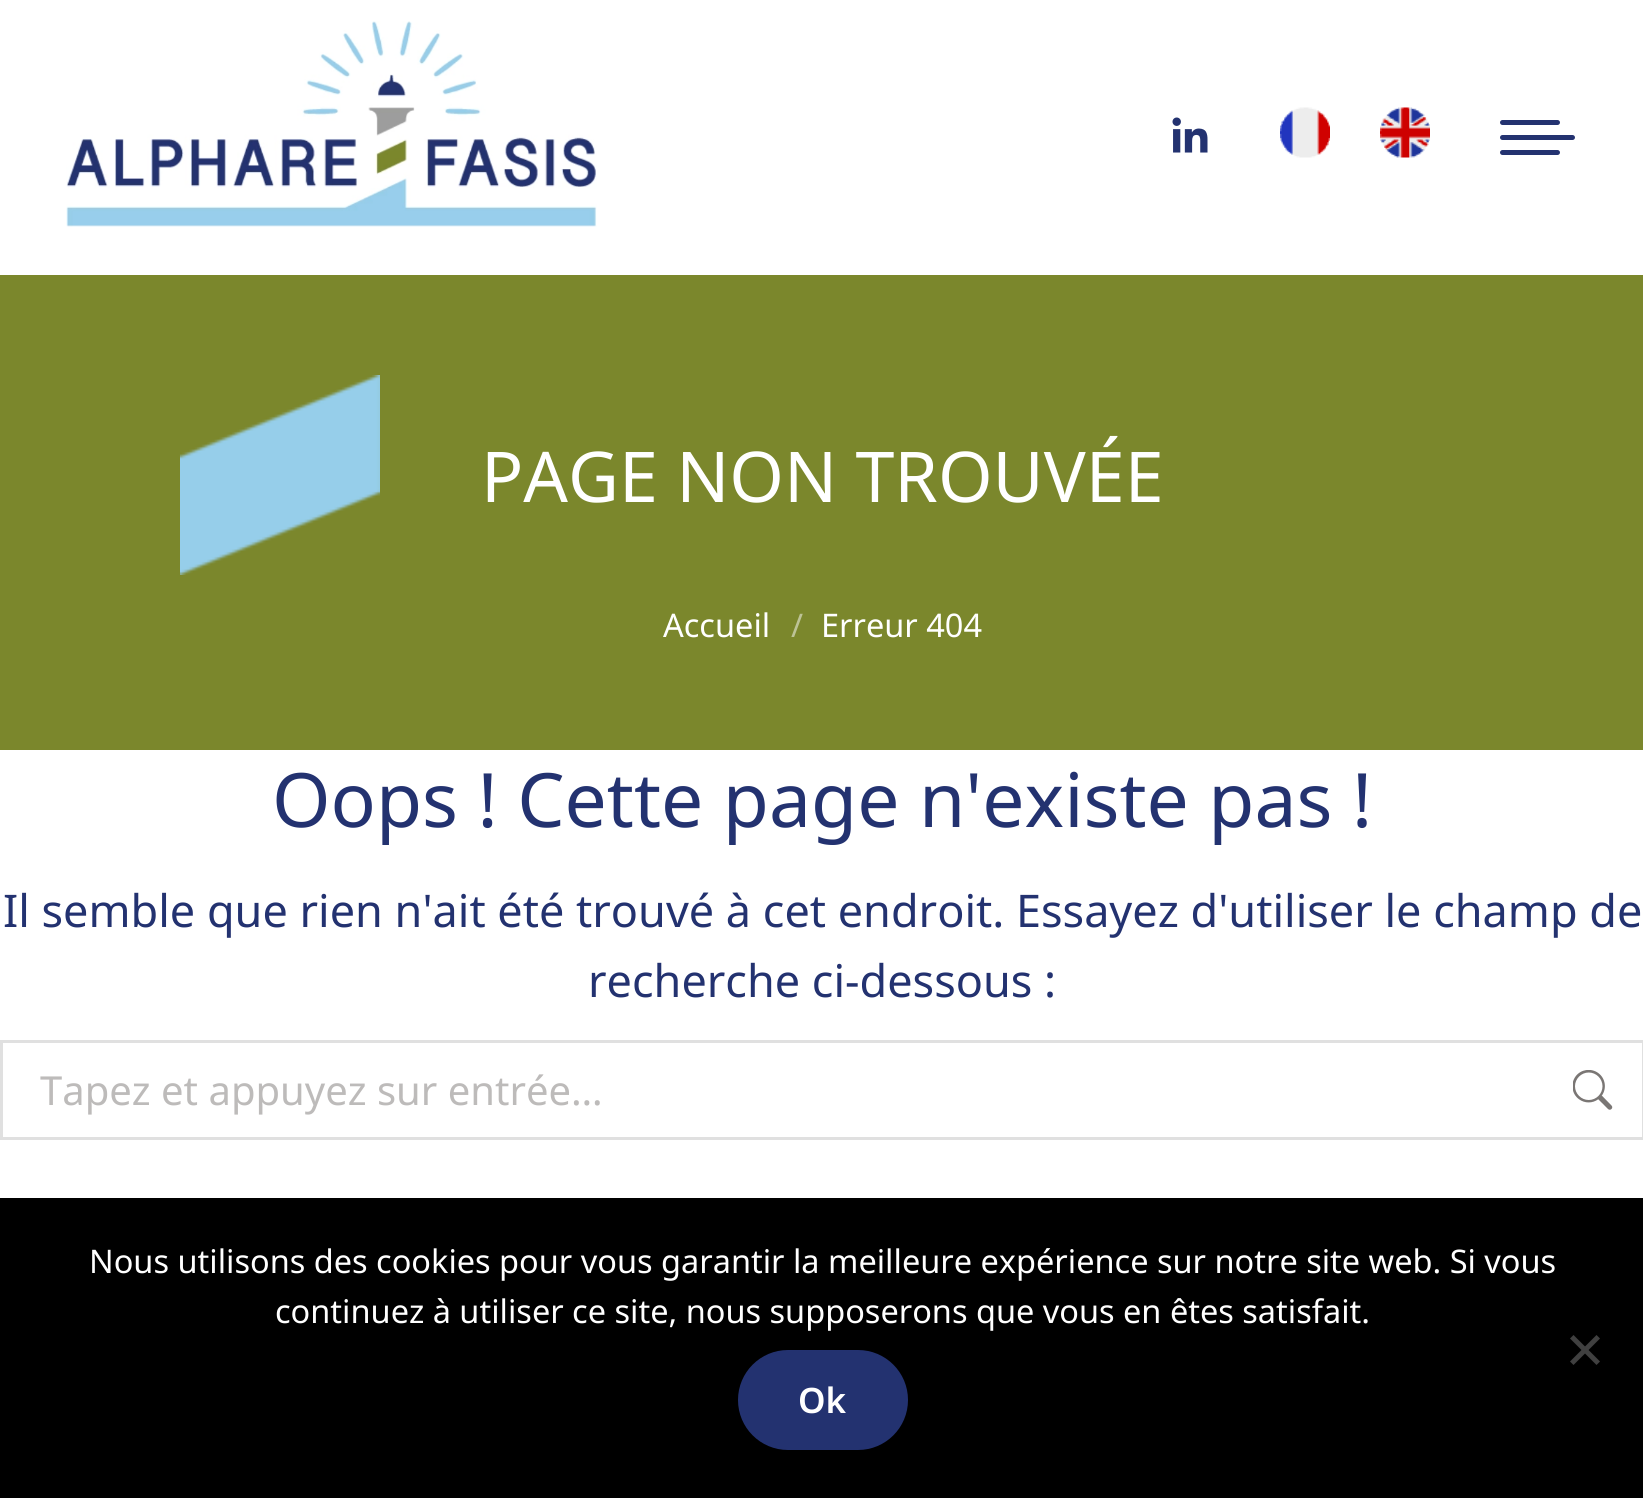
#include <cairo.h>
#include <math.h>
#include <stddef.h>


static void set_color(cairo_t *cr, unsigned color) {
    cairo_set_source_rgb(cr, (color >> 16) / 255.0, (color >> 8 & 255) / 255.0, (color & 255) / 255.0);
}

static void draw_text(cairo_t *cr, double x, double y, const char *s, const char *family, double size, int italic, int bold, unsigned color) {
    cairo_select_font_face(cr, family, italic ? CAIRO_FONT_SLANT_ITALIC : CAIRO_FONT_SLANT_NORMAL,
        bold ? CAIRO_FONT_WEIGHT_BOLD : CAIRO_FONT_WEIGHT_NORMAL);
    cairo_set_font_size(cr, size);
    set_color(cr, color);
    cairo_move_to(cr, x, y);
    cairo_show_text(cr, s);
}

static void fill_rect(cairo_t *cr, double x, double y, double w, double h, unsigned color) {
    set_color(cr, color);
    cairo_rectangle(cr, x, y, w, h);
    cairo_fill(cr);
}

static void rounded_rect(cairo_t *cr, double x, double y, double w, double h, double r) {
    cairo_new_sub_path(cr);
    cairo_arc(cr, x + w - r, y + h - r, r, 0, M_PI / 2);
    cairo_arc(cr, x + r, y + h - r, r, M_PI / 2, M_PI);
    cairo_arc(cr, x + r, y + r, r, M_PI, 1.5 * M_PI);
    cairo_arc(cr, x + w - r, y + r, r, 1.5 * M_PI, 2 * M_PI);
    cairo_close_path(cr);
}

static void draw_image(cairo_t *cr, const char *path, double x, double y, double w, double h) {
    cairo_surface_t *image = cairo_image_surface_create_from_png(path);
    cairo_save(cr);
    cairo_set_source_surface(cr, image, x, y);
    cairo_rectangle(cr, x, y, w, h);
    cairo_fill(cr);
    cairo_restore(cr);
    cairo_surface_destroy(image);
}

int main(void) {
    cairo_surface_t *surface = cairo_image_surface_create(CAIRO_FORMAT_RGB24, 1643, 1498);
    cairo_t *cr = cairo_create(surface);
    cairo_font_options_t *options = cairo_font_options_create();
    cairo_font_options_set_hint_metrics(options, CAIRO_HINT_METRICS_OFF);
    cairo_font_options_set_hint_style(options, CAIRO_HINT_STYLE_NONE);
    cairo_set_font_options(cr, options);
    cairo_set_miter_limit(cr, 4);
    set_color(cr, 0xFFFFFF);
    cairo_paint(cr);
    draw_image(cr, "assets/img1.png", 66, 21, 531, 206);
    draw_image(cr, "assets/img2.png", 1172, 117, 36, 36);
    draw_image(cr, "assets/img3.png", 1280, 107, 50, 51);
    draw_image(cr, "assets/img4.png", 1380, 107, 50, 51);
    set_color(cr, 0x233270);
    rounded_rect(cr, 1500, 120, 60, 5, 2.5);
    cairo_fill(cr);
    rounded_rect(cr, 1500, 135, 75, 5, 2.5);
    cairo_fill(cr);
    rounded_rect(cr, 1500, 150, 60, 5, 2.5);
    cairo_fill(cr);
    fill_rect(cr, 0, 275, 1643, 475, 0x7B872C);
    draw_image(cr, "assets/img5.png", 180, 375, 200, 200);
    draw_text(cr, 481, 502, "PAGE NON TROUVÉE", "Noto Sans", 70, 0, 0, 0xFFFFFF);
    draw_text(cr, 663, 637, "Accueil", "Noto Sans", 32.5, 0, 0, 0xFFFFFF);
    draw_text(cr, 791, 637, "/", "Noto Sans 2", 32.5, 0, 0, 0xBDC396);
    draw_text(cr, 821, 637, "Erreur 404", "Noto Sans", 32.5, 0, 0, 0xFFFFFF);
    draw_text(cr, 272, 827, "Oops ! Cette page n'existe pas !", "Noto Sans", 75, 0, 0, 0x233270);
    draw_text(cr, 3, 927, "Il semble que rien n'ait été trouvé à cet endroit. Essayez d'utiliser le champ de", "Noto Sans", 45, 0, 0, 0x233270);
    draw_text(cr, 588, 997, "recherche ci-dessous :", "Noto Sans", 45, 0, 0, 0x233270);
    cairo_rectangle(cr, 1.5, 1041.5, 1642, 97);
    set_color(cr, 0xE0E0E0);
    cairo_set_line_width(cr, 3);
    cairo_stroke(cr);
    draw_text(cr, 40, 1105, "Tapez et appuyez sur entrée…", "Noto Sans", 40, 0, 0, 0xBDBBBA);
    draw_image(cr, "assets/img6.png", 1573, 1070, 40, 40);
    fill_rect(cr, 0, 1198, 1643, 300, 0x000000);
    draw_text(cr, 89, 1273, "Nous utilisons des cookies pour vous garantir la meilleure expérience sur notre site web. Si vous", "Noto Sans", 32.5, 0, 0, 0xFFFFFF);
    draw_text(cr, 275, 1323, "continuez à utiliser ce site, nous supposerons que vous en êtes satisfait.", "Noto Sans", 32.5, 0, 0, 0xFFFFFF);
    set_color(cr, 0x404040);
    cairo_new_path(cr);
    cairo_move_to(cr, 1596.5, 1335);
    cairo_line_to(cr, 1600, 1338.5);
    cairo_line_to(cr, 1573.5, 1365);
    cairo_line_to(cr, 1570, 1361.5);
    cairo_close_path(cr);
    cairo_fill(cr);
    cairo_new_path(cr);
    cairo_move_to(cr, 1570, 1338.5);
    cairo_line_to(cr, 1573.5, 1335);
    cairo_line_to(cr, 1600, 1361.5);
    cairo_line_to(cr, 1596.5, 1365);
    cairo_close_path(cr);
    cairo_fill(cr);
    set_color(cr, 0x233270);
    rounded_rect(cr, 738, 1350, 170, 100, 50);
    cairo_fill(cr);
    draw_text(cr, 798, 1413, "Ok", "Noto Sans SemiBold", 35, 0, 0, 0xFFFFFF);
    cairo_surface_write_to_png(surface, "output.png");
    cairo_font_options_destroy(options);
    cairo_destroy(cr);
    cairo_surface_destroy(surface);
    return 0;
}
